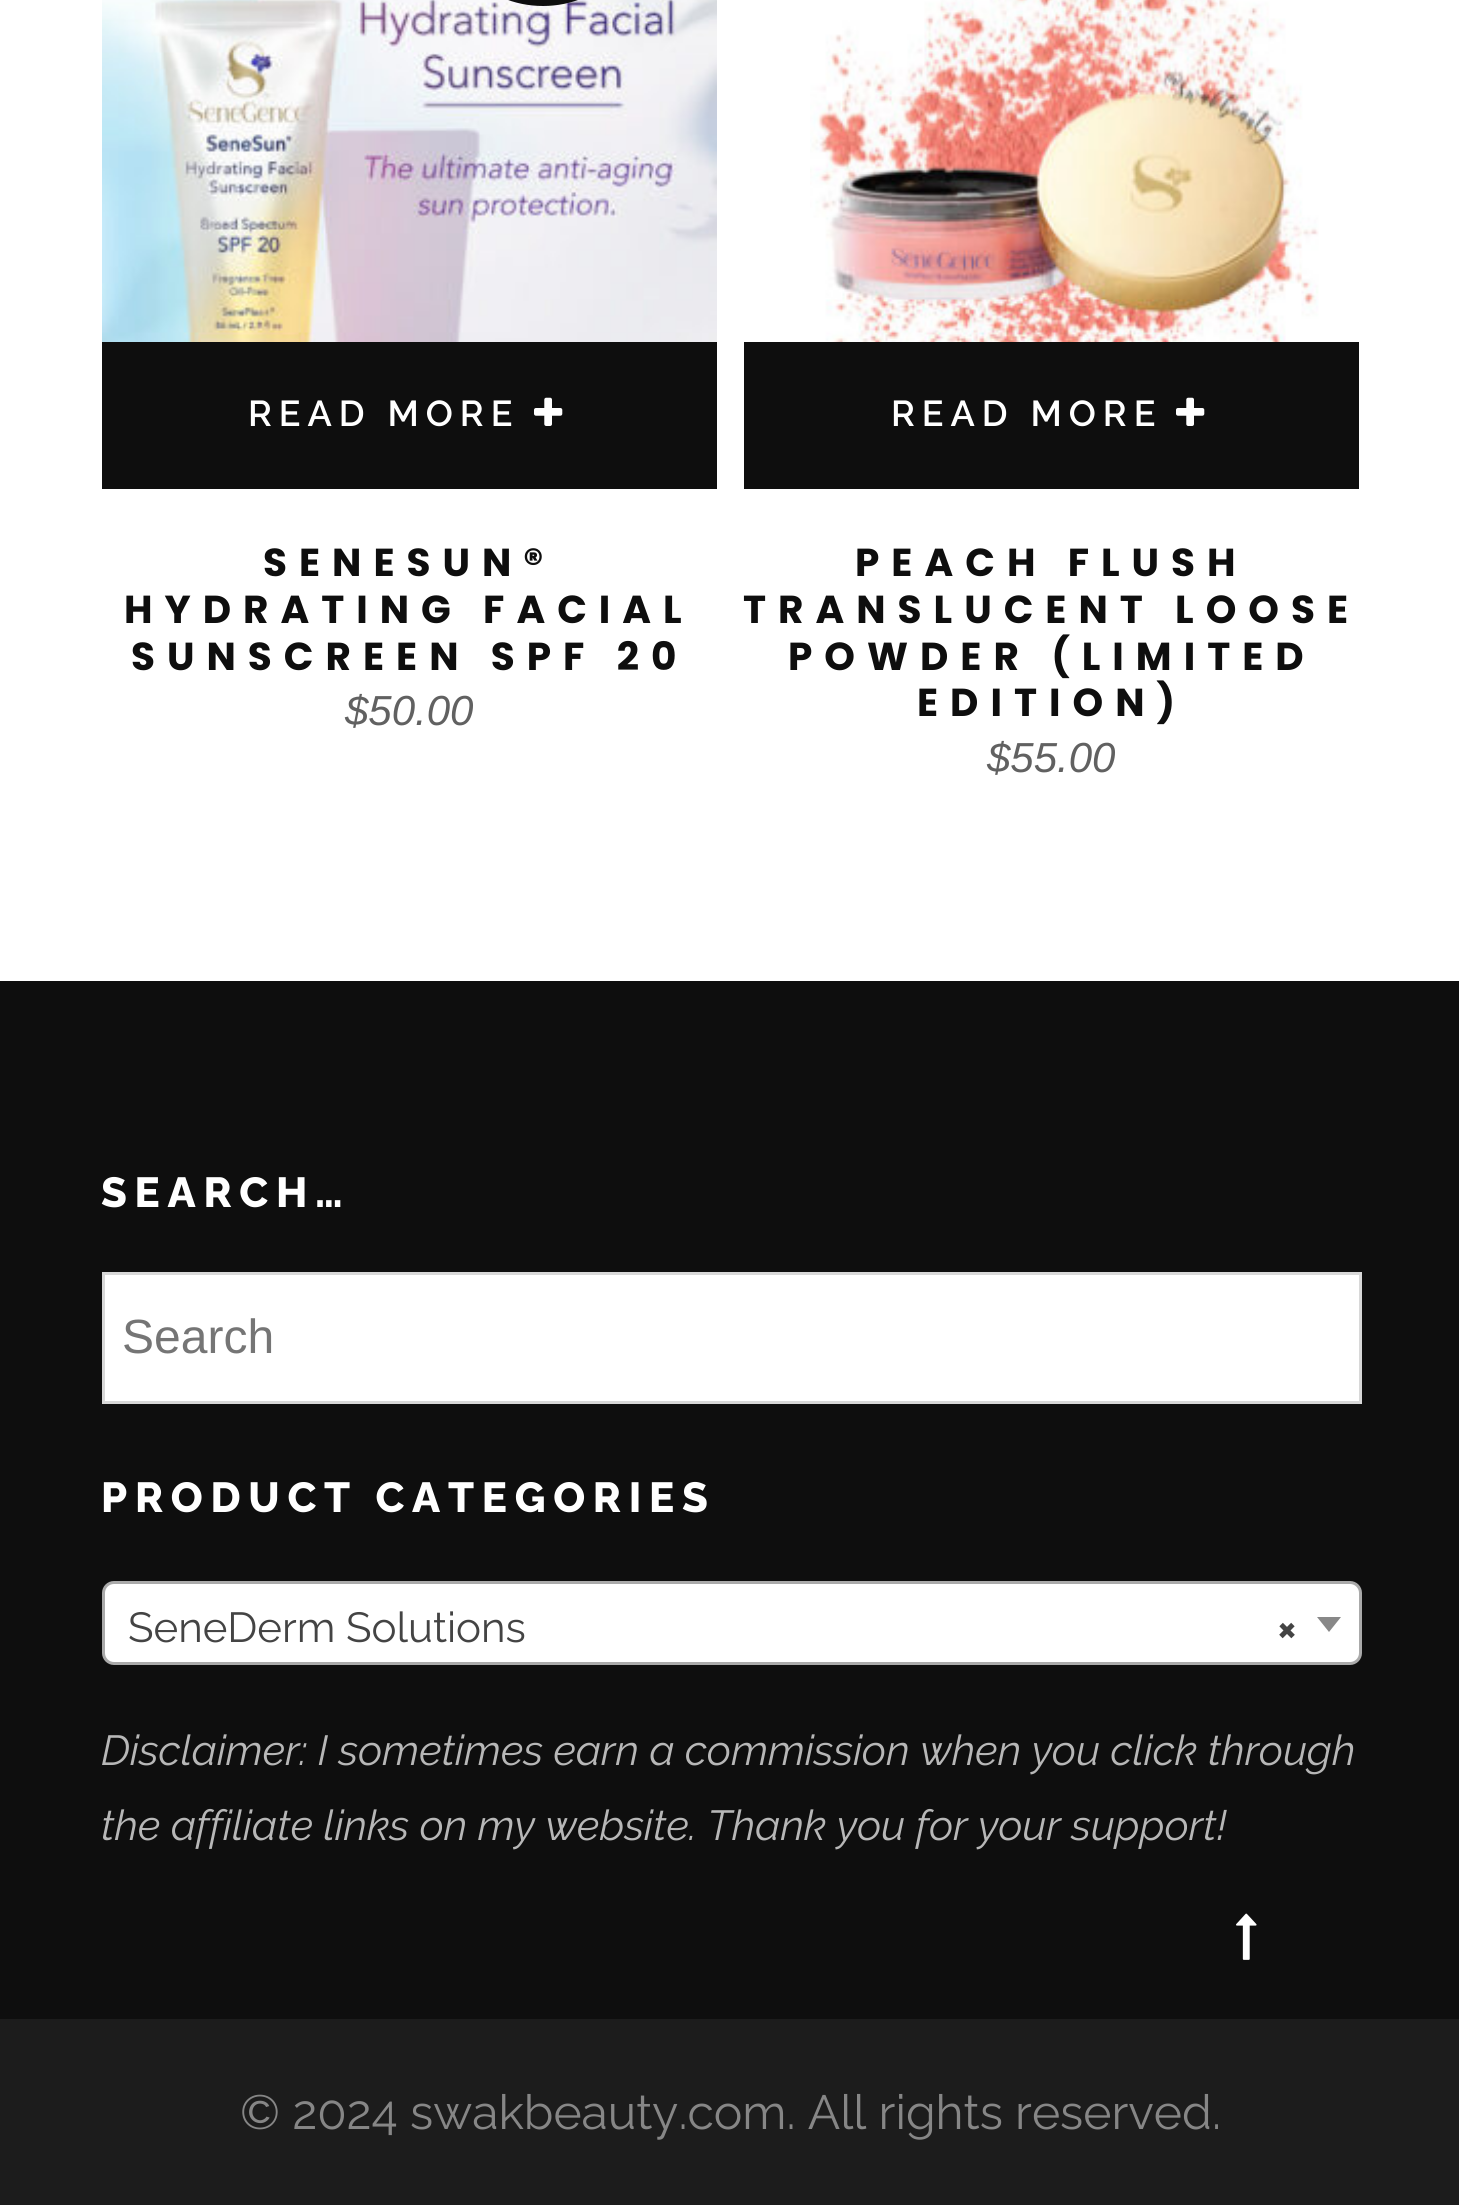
#include <cairo.h>
#include <math.h>
#include <stddef.h>


static void set_color(cairo_t *cr, unsigned color) {
    cairo_set_source_rgb(cr, (color >> 16) / 255.0, (color >> 8 & 255) / 255.0, (color & 255) / 255.0);
}

static void draw_text(cairo_t *cr, double x, double y, const char *s, const char *family, double size, int italic, int bold, unsigned color) {
    cairo_select_font_face(cr, family, italic ? CAIRO_FONT_SLANT_ITALIC : CAIRO_FONT_SLANT_NORMAL,
        bold ? CAIRO_FONT_WEIGHT_BOLD : CAIRO_FONT_WEIGHT_NORMAL);
    cairo_set_font_size(cr, size);
    set_color(cr, color);
    cairo_move_to(cr, x, y);
    cairo_show_text(cr, s);
}

static void draw_spaced(cairo_t *cr, double x, double y, const char *s, double letter, double word) {
    cairo_move_to(cr, x, y);
    while (*s) {
        char ch[5] = {0};
        int n = 0;
        do ch[n++] = *s++; while ((*s & 0xC0) == 0x80);
        cairo_show_text(cr, ch);
        cairo_rel_move_to(cr, letter + word * (*ch == ' '), 0);
    }
}

static void fill_rect(cairo_t *cr, double x, double y, double w, double h, unsigned color) {
    set_color(cr, color);
    cairo_rectangle(cr, x, y, w, h);
    cairo_fill(cr);
}

static void rounded_rect(cairo_t *cr, double x, double y, double w, double h, double r) {
    cairo_new_sub_path(cr);
    cairo_arc(cr, x + w - r, y + h - r, r, 0, M_PI / 2);
    cairo_arc(cr, x + r, y + h - r, r, M_PI / 2, M_PI);
    cairo_arc(cr, x + r, y + r, r, M_PI, 1.5 * M_PI);
    cairo_arc(cr, x + w - r, y + r, r, 1.5 * M_PI, 2 * M_PI);
    cairo_close_path(cr);
}

static void draw_image(cairo_t *cr, const char *path, double x, double y, double w, double h) {
    cairo_surface_t *image = cairo_image_surface_create_from_png(path);
    cairo_save(cr);
    cairo_set_source_surface(cr, image, x, y);
    cairo_rectangle(cr, x, y, w, h);
    cairo_fill(cr);
    cairo_restore(cr);
    cairo_surface_destroy(image);
}

int main(void) {
    cairo_surface_t *surface = cairo_image_surface_create(CAIRO_FORMAT_RGB24, 1459, 2205);
    cairo_t *cr = cairo_create(surface);
    cairo_font_options_t *options = cairo_font_options_create();
    cairo_font_options_set_hint_metrics(options, CAIRO_HINT_METRICS_OFF);
    cairo_font_options_set_hint_style(options, CAIRO_HINT_STYLE_NONE);
    cairo_set_font_options(cr, options);
    cairo_set_miter_limit(cr, 4);
    set_color(cr, 0xFFFFFF);
    cairo_paint(cr);
    draw_image(cr, "assets/img1.png", 102, 0, 615, 342);
    set_color(cr, 0x0E0E0E);
    rounded_rect(cr, 438, -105, 210, 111, 105);
    cairo_fill(cr);
    fill_rect(cr, 102, 342, 615, 147, 0x0E0E0E);
    cairo_select_font_face(cr, "Raleway SemiBold", CAIRO_FONT_SLANT_NORMAL, CAIRO_FONT_WEIGHT_NORMAL);
    cairo_set_font_size(cr, 36);
    set_color(cr, 0xFFFFFF);
    draw_spaced(cr, 248, 426, "READ MORE", 7, 0);
    draw_image(cr, "assets/img2.png", 534, 397, 29, 29);
    cairo_select_font_face(cr, "Poppins", CAIRO_FONT_SLANT_NORMAL, CAIRO_FONT_WEIGHT_BOLD);
    cairo_set_font_size(cr, 39);
    set_color(cr, 0x0E0E0E);
    draw_spaced(cr, 263, 576, "SENESUN®", 12, 0);
    draw_spaced(cr, 124, 623, "HYDRATING FACIAL", 12, 0);
    draw_spaced(cr, 131, 670, "SUNSCREEN SPF 20", 12, 0);
    draw_text(cr, 345, 725, "$50.00", "Liberation Sans", 42, 1, 0, 0x616161);
    draw_image(cr, "assets/img3.png", 810, 0, 509, 342);
    fill_rect(cr, 744, 342, 615, 147, 0x0E0E0E);
    cairo_select_font_face(cr, "Raleway SemiBold", CAIRO_FONT_SLANT_NORMAL, CAIRO_FONT_WEIGHT_NORMAL);
    cairo_set_font_size(cr, 36);
    set_color(cr, 0xFFFFFF);
    draw_spaced(cr, 891, 426, "READ MORE", 7, 0);
    draw_image(cr, "assets/img2.png", 1176, 397, 29, 29);
    cairo_select_font_face(cr, "Poppins", CAIRO_FONT_SLANT_NORMAL, CAIRO_FONT_WEIGHT_BOLD);
    cairo_set_font_size(cr, 39);
    set_color(cr, 0x0E0E0E);
    draw_spaced(cr, 855, 576, "PEACH FLUSH", 12, 0);
    draw_spaced(cr, 743, 623, "TRANSLUCENT LOOSE", 12, 0);
    draw_spaced(cr, 788, 670, "POWDER (LIMITED", 12, 0);
    draw_spaced(cr, 917, 716, "EDITION)", 12, 0);
    draw_text(cr, 987, 772, "$55.00", "Liberation Sans", 42, 1, 0, 0x616161);
    fill_rect(cr, 0, 981, 1459, 1038, 0x0E0E0E);
    cairo_select_font_face(cr, "Raleway ExtraBold", CAIRO_FONT_SLANT_NORMAL, CAIRO_FONT_WEIGHT_NORMAL);
    set_color(cr, 0xFFFFFF);
    draw_spaced(cr, 101, 1207, "SEARCH…", 7.75, 0);
    cairo_rectangle(cr, 103.5, 1273.5, 1257, 129);
    cairo_fill_preserve(cr);
    set_color(cr, 0xD8D8D8);
    cairo_set_line_width(cr, 3);
    cairo_stroke(cr);
    draw_text(cr, 122, 1353, "Search", "Liberation Sans", 48, 0, 0, 0x757575);
    cairo_select_font_face(cr, "Raleway ExtraBold", CAIRO_FONT_SLANT_NORMAL, CAIRO_FONT_WEIGHT_NORMAL);
    cairo_set_font_size(cr, 42);
    set_color(cr, 0xFFFFFF);
    draw_spaced(cr, 101, 1512, "PRODUCT CATEGORIES", 7.75, 0);
    rounded_rect(cr, 103.5, 1582.5, 1257, 81, 10.5);
    cairo_fill_preserve(cr);
    set_color(cr, 0xAAAAAA);
    cairo_stroke(cr);
    draw_text(cr, 128, 1642, "SeneDerm Solutions", "Raleway", 42, 0, 0, 0x444444);
    draw_text(cr, 1277, 1642, "×", "Raleway", 42, 0, 1, 0x444444);
    set_color(cr, 0x888888);
    cairo_new_path(cr);
    cairo_move_to(cr, 1317, 1617);
    cairo_line_to(cr, 1341, 1617);
    cairo_line_to(cr, 1329, 1632);
    cairo_close_path(cr);
    cairo_fill(cr);
    draw_text(cr, 101, 1765, "Disclaimer: I sometimes earn a commission when you click through", "Raleway", 42, 1, 0, 0xB7B7B7);
    draw_text(cr, 101, 1840, "the affiliate links on my website. Thank you for your support!", "Raleway", 42, 1, 0, 0xB7B7B7);
    fill_rect(cr, 0, 2019, 1459, 186, 0x1C1C1C);
    draw_text(cr, 240, 2129, "© 2024 swakbeauty.com. All rights reserved.", "Raleway", 48, 0, 0, 0x868686);
    draw_image(cr, "assets/img4.png", 1236, 1913, 21, 47);
    cairo_surface_write_to_png(surface, "output.png");
    cairo_font_options_destroy(options);
    cairo_destroy(cr);
    cairo_surface_destroy(surface);
    return 0;
}
